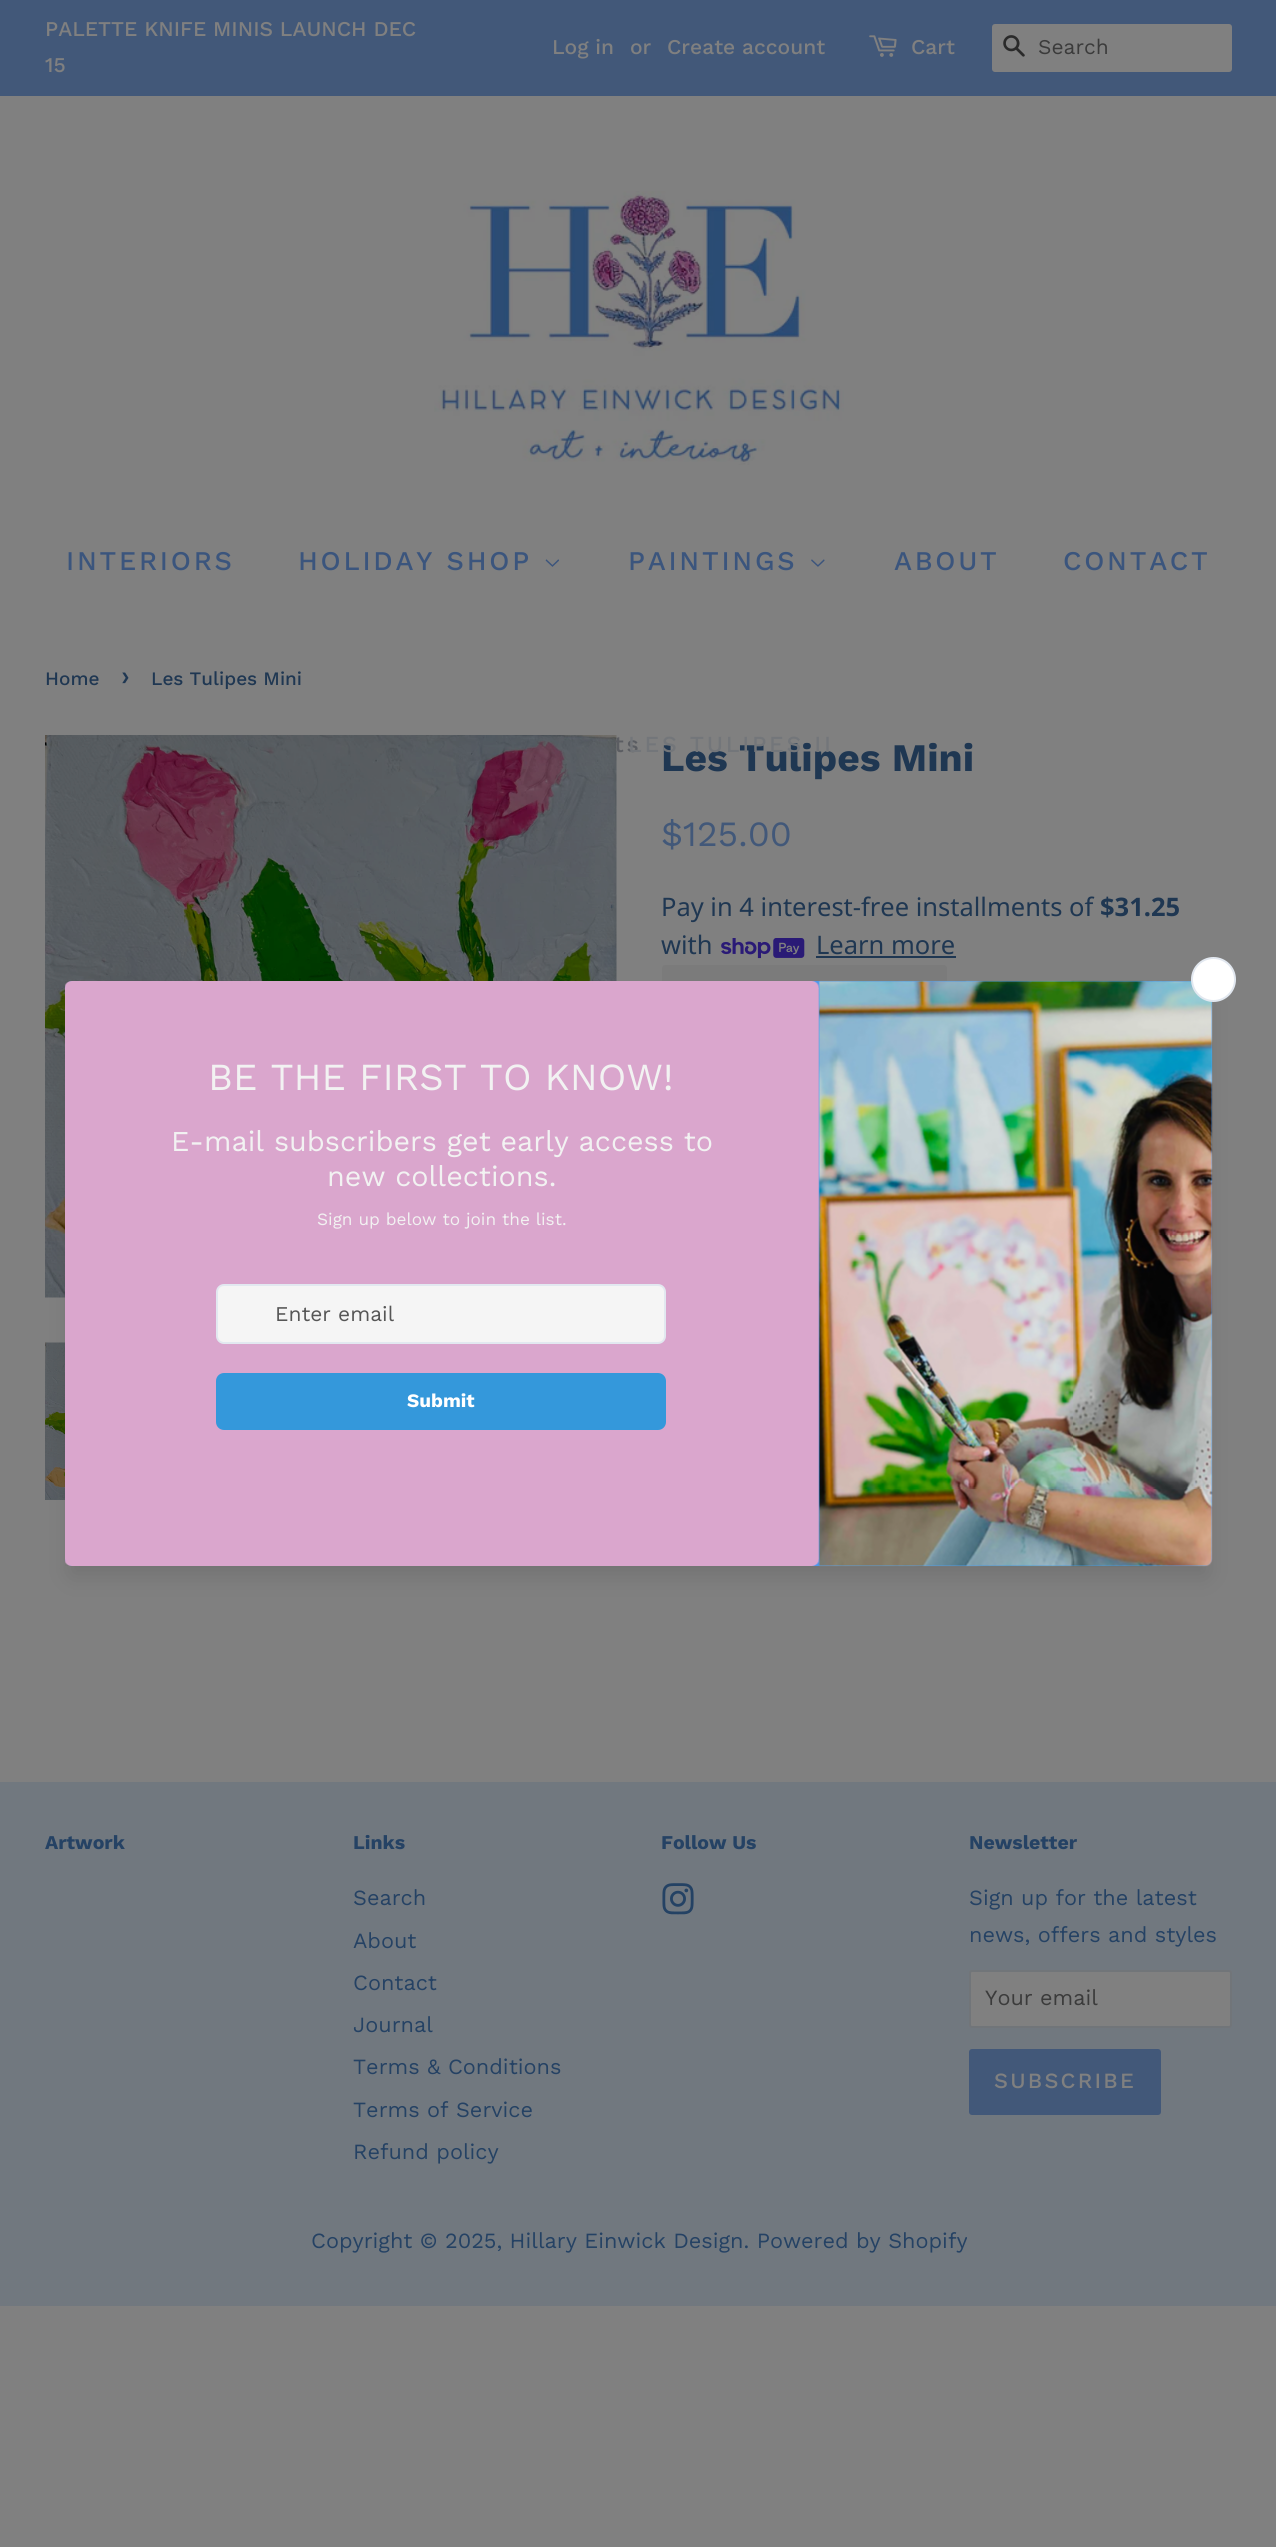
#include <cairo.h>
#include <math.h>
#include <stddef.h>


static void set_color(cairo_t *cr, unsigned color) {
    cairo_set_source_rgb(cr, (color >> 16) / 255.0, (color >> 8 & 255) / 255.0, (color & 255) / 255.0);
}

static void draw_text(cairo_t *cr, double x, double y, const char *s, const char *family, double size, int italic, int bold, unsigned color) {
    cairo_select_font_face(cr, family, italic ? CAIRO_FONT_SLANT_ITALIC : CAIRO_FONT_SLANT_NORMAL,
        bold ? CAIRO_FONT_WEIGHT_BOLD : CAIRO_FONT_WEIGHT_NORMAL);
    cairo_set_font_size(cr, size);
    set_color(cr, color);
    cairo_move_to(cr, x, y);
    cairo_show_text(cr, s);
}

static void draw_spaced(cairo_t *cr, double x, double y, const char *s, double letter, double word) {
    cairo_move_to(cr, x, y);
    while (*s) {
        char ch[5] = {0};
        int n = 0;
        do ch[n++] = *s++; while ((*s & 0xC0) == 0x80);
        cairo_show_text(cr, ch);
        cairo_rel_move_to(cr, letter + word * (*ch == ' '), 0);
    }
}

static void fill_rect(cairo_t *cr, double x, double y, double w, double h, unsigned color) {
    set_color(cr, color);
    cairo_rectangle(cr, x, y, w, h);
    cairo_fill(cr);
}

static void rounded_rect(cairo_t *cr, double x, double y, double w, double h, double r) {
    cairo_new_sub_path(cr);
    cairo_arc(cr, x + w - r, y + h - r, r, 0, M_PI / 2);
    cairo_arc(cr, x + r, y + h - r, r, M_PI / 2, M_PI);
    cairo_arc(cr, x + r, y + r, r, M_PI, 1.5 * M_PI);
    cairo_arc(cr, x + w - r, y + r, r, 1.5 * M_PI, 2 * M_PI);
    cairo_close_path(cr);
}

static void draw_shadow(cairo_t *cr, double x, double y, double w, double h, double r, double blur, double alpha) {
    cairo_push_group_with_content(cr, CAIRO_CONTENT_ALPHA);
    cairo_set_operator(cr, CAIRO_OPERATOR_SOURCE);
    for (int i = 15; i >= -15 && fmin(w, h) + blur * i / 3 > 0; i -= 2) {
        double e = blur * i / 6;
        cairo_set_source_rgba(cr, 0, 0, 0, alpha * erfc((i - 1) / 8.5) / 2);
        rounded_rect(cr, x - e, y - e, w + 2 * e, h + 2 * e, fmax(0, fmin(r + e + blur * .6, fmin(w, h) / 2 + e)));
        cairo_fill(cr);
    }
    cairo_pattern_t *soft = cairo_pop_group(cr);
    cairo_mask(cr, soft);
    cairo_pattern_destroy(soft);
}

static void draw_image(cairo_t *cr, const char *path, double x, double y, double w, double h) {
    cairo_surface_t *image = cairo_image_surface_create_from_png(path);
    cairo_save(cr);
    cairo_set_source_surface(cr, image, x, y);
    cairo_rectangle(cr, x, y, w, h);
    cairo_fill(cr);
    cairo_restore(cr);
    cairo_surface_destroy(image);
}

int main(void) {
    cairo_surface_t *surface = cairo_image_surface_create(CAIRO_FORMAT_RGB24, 1276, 2547);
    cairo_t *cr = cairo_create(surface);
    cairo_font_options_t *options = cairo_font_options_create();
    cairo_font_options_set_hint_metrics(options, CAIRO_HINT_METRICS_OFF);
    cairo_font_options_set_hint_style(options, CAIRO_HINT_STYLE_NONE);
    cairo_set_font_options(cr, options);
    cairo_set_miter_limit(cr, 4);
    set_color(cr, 0x808080);
    cairo_paint(cr);
    fill_rect(cr, 0, 0, 1276, 96, 0x425879);
    draw_text(cr, 45, 36, "PALETTE KNIFE MINIS LAUNCH DEC", "Work Sans Medium", 21, 0, 0, 0x808080);
    draw_text(cr, 45, 72, "15", "Work Sans Medium", 21, 0, 0, 0x808080);
    draw_text(cr, 552, 54, "Log in", "Work Sans Medium", 21, 0, 0, 0x808080);
    draw_text(cr, 630, 54, "or", "Work Sans Medium", 21, 0, 0, 0x808080);
    draw_text(cr, 667, 54, "Create account", "Work Sans Medium", 21, 0, 0, 0x808080);
    draw_image(cr, "assets/img1.png", 869, 35, 28, 22);
    draw_text(cr, 911, 54, "Cart", "Work Sans Medium", 21, 0, 0, 0x808080);
    rounded_rect(cr, 992, 24, 240, 48, 3);
    cairo_fill(cr);
    draw_image(cr, "assets/img2.png", 1003, 35, 22, 22);
    draw_text(cr, 1038, 54, "Search", "Work Sans", 21, 0, 0, 0x3B3B3B);
    draw_image(cr, "assets/img3.png", 434, 191, 410, 274);
    cairo_select_font_face(cr, "Work Sans Medium", CAIRO_FONT_SLANT_NORMAL, CAIRO_FONT_WEIGHT_NORMAL);
    cairo_set_font_size(cr, 27);
    set_color(cr, 0x3B557D);
    draw_spaced(cr, 66, 570, "INTERIORS", 2.75, 0);
    draw_spaced(cr, 298, 570, "HOLIDAY SHOP", 2.75, 0);
    draw_image(cr, "assets/img4.png", 545, 559, 14, 8);
    draw_image(cr, "assets/img6.png", 45, 735, 572, 563);
    cairo_set_font_size(cr, 23);
    set_color(cr, 0x5B5D62);
    draw_spaced(cr, 614, 752, "ts", 2.75, 0);
    cairo_set_font_size(cr, 27);
    set_color(cr, 0x3B557D);
    draw_spaced(cr, 628, 570, "PAINTINGS", 2.75, 0);
    draw_image(cr, "assets/img5.png", 811, 559, 14, 8);
    draw_text(cr, 661, 771, "Les Tulipes Mini", "Work Sans", 39, 0, 1, 0x1F3752);
    cairo_select_font_face(cr, "Work Sans Medium", CAIRO_FONT_SLANT_NORMAL, CAIRO_FONT_WEIGHT_NORMAL);
    cairo_set_font_size(cr, 23);
    set_color(cr, 0x73767A);
    draw_spaced(cr, 628, 752, "LES TULIPES II", 2.75, 0);
    cairo_set_font_size(cr, 27);
    set_color(cr, 0x3B557D);
    draw_spaced(cr, 894, 570, "ABOUT", 2.75, 0);
    draw_spaced(cr, 1063, 570, "CONTACT", 2.75, 0);
    draw_text(cr, 45, 685, "Home", "Work Sans Medium", 19, 0, 0, 0x1F3752);
    draw_text(cr, 121, 685, "›", "Work Sans Medium", 27, 0, 0, 0x1F3752);
    draw_text(cr, 151, 685, "Les Tulipes Mini", "Work Sans Medium", 19, 0, 0, 0x1F3752);
    draw_image(cr, "assets/img7.png", 45, 1342, 20, 158);
    draw_text(cr, 661, 846, "$125.00", "Work Sans", 35.5, 0, 0, 0x425879);
    draw_text(cr, 661, 916, "Pay in 4 interest-free installments of", "Noto Sans", 25.5, 0, 0, 0x1F3752);
    draw_text(cr, 1100, 916, "$31.25", "Noto Sans", 25.5, 0, 1, 0x1F3752);
    draw_text(cr, 661, 954, "with", "Noto Sans", 25.5, 0, 0, 0x1F3752);
    draw_image(cr, "assets/img8.png", 721, 938, 84, 21);
    draw_text(cr, 816, 954, "Learn more", "Noto Sans", 25.5, 0, 0, 0x1F3752);
    fill_rect(cr, 816, 956, 140, 2, 0x1F3752);
    set_color(cr, 0x7B7B7B);
    rounded_rect(cr, 662, 965, 285, 75, 3);
    cairo_fill(cr);
    set_color(cr, 0x000000);
    draw_shadow(cr, 69, 1001, 1139, 576, 3, 11, 0.1);
    set_color(cr, 0x4D9CF5);
    rounded_rect(cr, 65, 981, 1147, 585, 8);
    cairo_fill(cr);
    draw_image(cr, "assets/img10.png", 818, 980, 395, 587);
    set_color(cr, 0xFFFFFF);
    cairo_arc(cr, 1213.5, 979.5, 21.5, 0, 2 * M_PI);
    cairo_fill_preserve(cr);
    set_color(cr, 0xE2E8F0);
    cairo_stroke(cr);
    cairo_save(cr);
    cairo_rectangle(cr, 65, 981, 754, 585);
    cairo_clip(cr);
    set_color(cr, 0x000000);
    draw_shadow(cr, 69, 986, 746, 576, 3, 15, 0.12);
    cairo_restore(cr);
    draw_image(cr, "assets/img9.png", 65, 981, 754, 585);
    draw_text(cr, 208, 1090, "BE THE FIRST TO KNOW!", "Work Sans", 38.25, 0, 0, 0xF2F2F2);
    draw_text(cr, 171, 1151, "E-mail subscribers get early access to", "Work Sans", 28.75, 0, 0, 0xF2F2F2);
    draw_text(cr, 327, 1186, "new collections.", "Work Sans", 28.75, 0, 0, 0xF2F2F2);
    draw_text(cr, 317, 1225, "Sign up below to join the list.", "Work Sans", 17.25, 0, 0, 0xF2F2F2);
    set_color(cr, 0xF5F5F5);
    rounded_rect(cr, 217, 1285, 448, 58, 7);
    cairo_fill_preserve(cr);
    set_color(cr, 0xE2E8F0);
    cairo_stroke(cr);
    draw_text(cr, 275, 1321, "Enter email", "Work Sans", 21, 0, 0, 0x565656);
    set_color(cr, 0x3498DB);
    rounded_rect(cr, 216, 1373, 450, 57, 8);
    cairo_fill(cr);
    draw_text(cr, 407, 1407, "Submit", "Work Sans", 19, 0, 1, 0xFFFFFF);
    fill_rect(cr, 0, 1782, 1276, 524, 0x71787F);
    draw_text(cr, 45, 1849, "Artwork", "Work Sans", 19.5, 0, 1, 0x254264);
    draw_text(cr, 353, 1849, "Links", "Work Sans", 19.5, 0, 1, 0x254264);
    draw_text(cr, 353, 1905, "Search", "Work Sans", 21.7, 0, 0, 0x254264);
    draw_text(cr, 353, 1948, "About", "Work Sans", 21.7, 0, 0, 0x254264);
    draw_text(cr, 353, 1990, "Contact", "Work Sans", 21.7, 0, 0, 0x254264);
    draw_text(cr, 353, 2032, "Journal", "Work Sans", 21.7, 0, 0, 0x254264);
    draw_text(cr, 353, 2074, "Terms & Conditions", "Work Sans", 21.7, 0, 0, 0x254264);
    draw_text(cr, 353, 2117, "Terms of Service", "Work Sans", 21.7, 0, 0, 0x254264);
    draw_text(cr, 353, 2159, "Refund policy", "Work Sans", 21.7, 0, 0, 0x254264);
    draw_text(cr, 661, 1849, "Follow Us", "Work Sans", 19.5, 0, 1, 0x254264);
    draw_image(cr, "assets/img11.png", 662, 1883, 32, 32);
    draw_text(cr, 969, 1849, "Newsletter", "Work Sans", 19.5, 0, 1, 0x254264);
    draw_text(cr, 969, 1905, "Sign up for the latest", "Work Sans", 21.7, 0, 0, 0x254264);
    draw_text(cr, 969, 1942, "news, offers and styles", "Work Sans", 21.7, 0, 0, 0x254264);
    set_color(cr, 0x808080);
    rounded_rect(cr, 969, 1970, 263, 58, 3);
    cairo_fill(cr);
    rounded_rect(cr, 970, 1971, 261, 56, 2);
    cairo_set_source_rgba(cr, 0.122, 0.216, 0.322, 0.15);
    cairo_stroke(cr);
    draw_text(cr, 985, 2005, "Your email", "Work Sans", 21.7, 0, 0, 0x3B3B3B);
    set_color(cr, 0x425879);
    rounded_rect(cr, 969, 2049, 192, 66, 3);
    cairo_fill(cr);
    cairo_select_font_face(cr, "Work Sans Medium", CAIRO_FONT_SLANT_NORMAL, CAIRO_FONT_WEIGHT_NORMAL);
    set_color(cr, 0x808080);
    draw_spaced(cr, 994, 2088, "SUBSCRIBE", 2.25, 0);
    draw_text(cr, 311, 2248, "Copyright © 2025, Hillary Einwick Design. Powered by Shopify", "Work Sans", 21.7, 0, 0, 0x254264);
    cairo_surface_write_to_png(surface, "output.png");
    cairo_font_options_destroy(options);
    cairo_destroy(cr);
    cairo_surface_destroy(surface);
    return 0;
}
